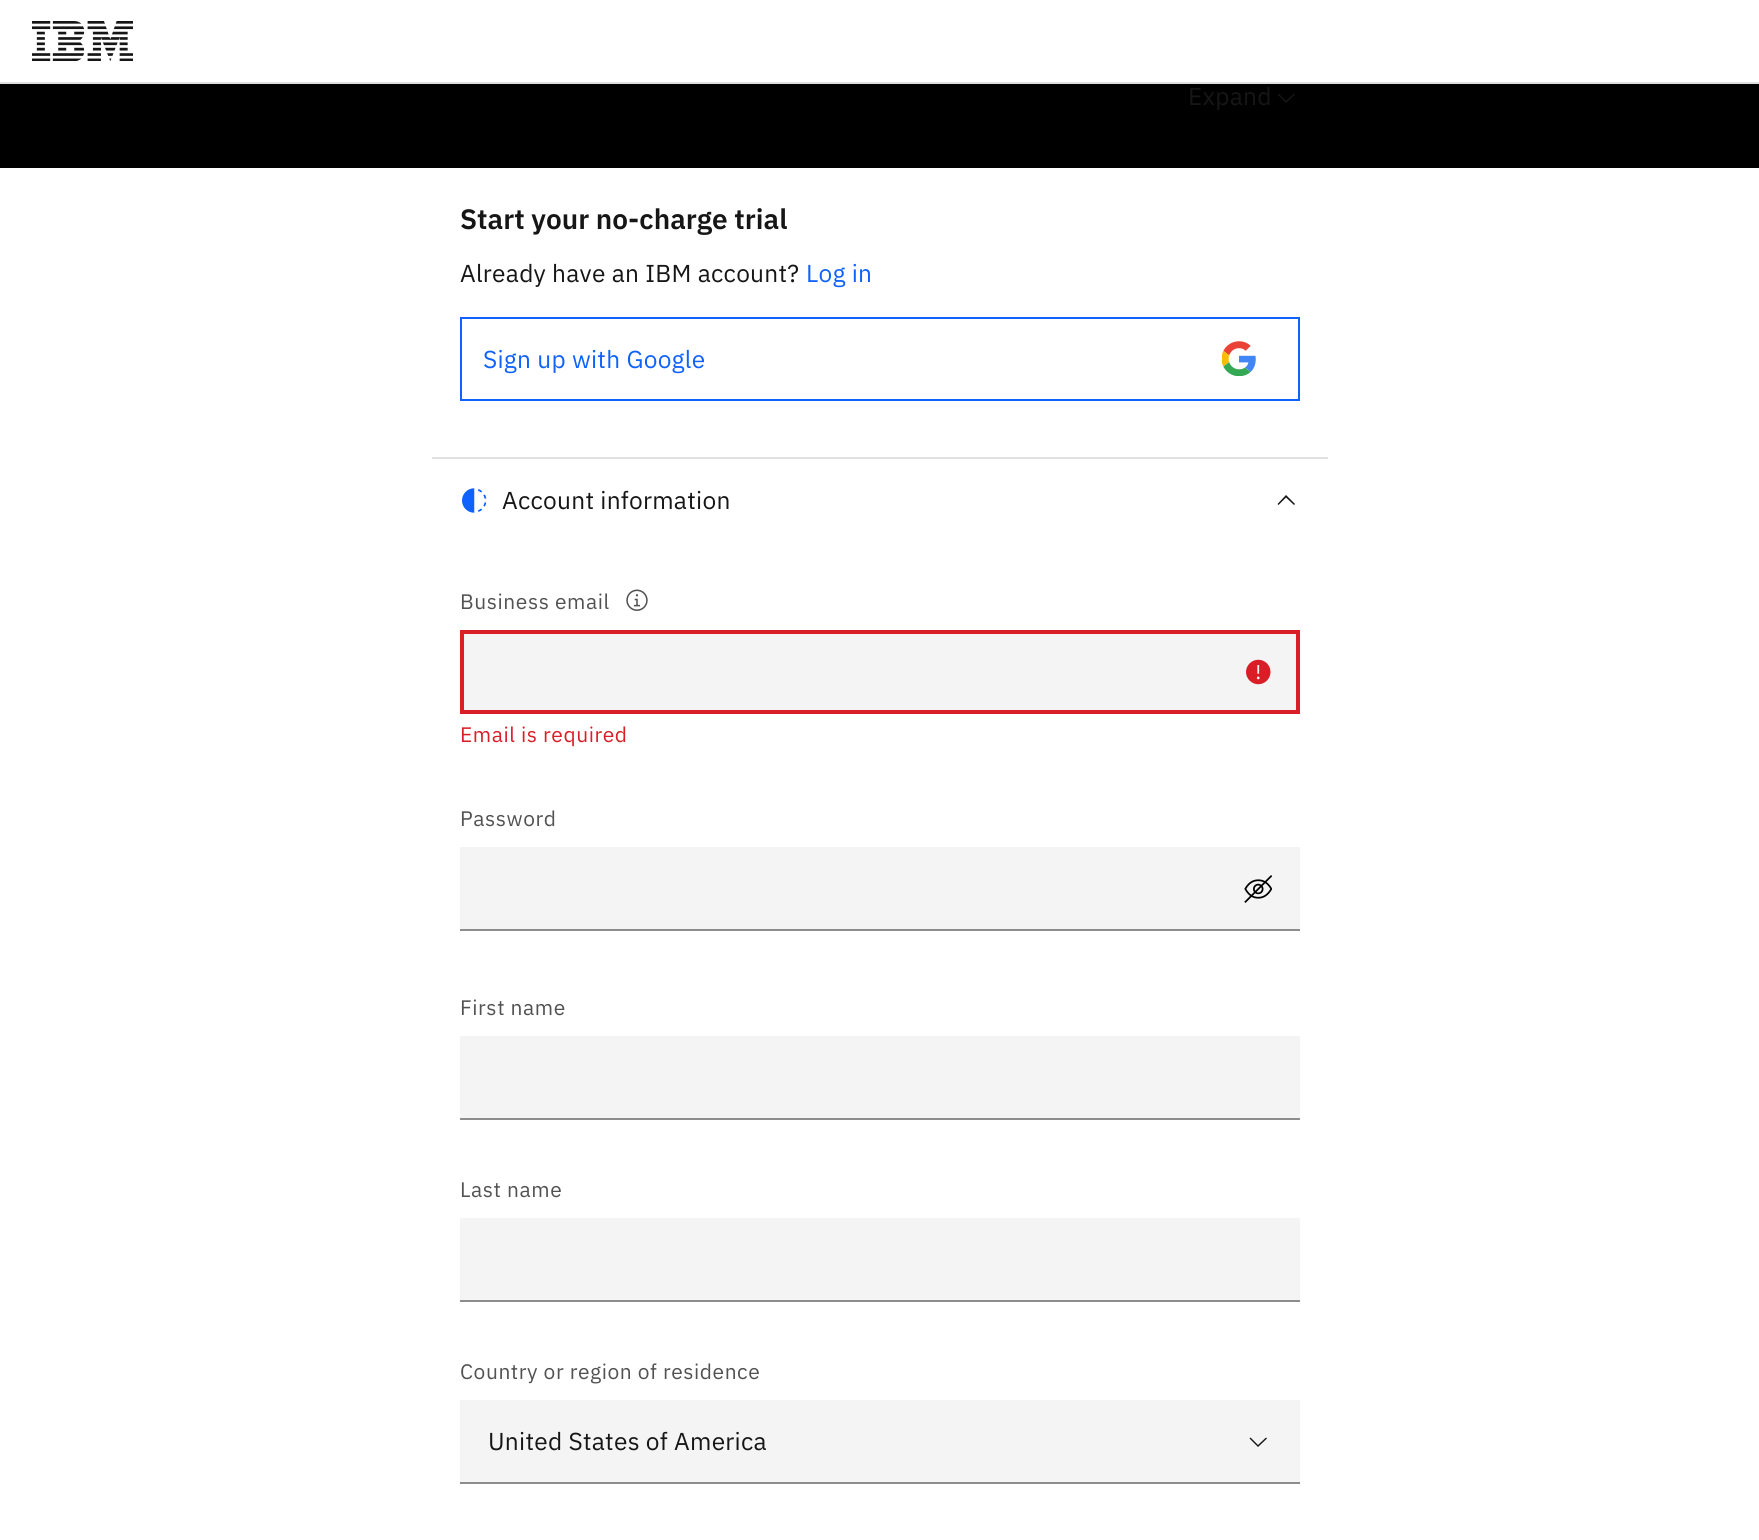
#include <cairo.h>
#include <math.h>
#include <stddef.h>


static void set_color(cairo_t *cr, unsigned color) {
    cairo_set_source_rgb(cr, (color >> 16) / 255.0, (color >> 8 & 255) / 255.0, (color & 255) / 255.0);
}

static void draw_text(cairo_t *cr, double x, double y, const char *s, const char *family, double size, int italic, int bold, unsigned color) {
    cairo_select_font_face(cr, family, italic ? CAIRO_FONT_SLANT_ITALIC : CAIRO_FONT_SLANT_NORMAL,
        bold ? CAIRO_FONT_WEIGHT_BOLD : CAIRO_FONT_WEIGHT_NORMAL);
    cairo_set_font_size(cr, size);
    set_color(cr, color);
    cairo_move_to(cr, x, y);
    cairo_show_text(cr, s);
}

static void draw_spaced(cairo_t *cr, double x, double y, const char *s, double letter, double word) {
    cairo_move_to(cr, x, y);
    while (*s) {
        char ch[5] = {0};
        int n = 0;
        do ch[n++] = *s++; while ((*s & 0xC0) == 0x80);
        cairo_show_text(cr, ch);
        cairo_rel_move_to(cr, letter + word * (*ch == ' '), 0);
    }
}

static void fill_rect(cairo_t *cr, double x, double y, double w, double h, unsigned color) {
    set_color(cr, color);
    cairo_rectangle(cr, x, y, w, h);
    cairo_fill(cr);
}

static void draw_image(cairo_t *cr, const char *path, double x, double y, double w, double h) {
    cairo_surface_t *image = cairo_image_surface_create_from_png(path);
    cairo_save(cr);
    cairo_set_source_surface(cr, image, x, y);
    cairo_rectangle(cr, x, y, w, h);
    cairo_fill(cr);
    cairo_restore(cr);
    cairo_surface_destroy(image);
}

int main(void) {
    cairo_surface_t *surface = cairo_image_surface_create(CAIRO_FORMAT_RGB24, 1759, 1540);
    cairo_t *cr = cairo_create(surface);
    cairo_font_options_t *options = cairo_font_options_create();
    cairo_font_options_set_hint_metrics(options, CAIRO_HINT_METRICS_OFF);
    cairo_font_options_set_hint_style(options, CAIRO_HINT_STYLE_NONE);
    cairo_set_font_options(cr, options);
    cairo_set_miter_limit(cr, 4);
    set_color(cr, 0xFFFFFF);
    cairo_paint(cr);
    fill_rect(cr, 0, 82, 1759, 2, 0xE0E0E0);
    draw_image(cr, "assets/img1.png", 32, 21, 101, 40);
    fill_rect(cr, 0, 84, 1759, 84, 0x000000);
    cairo_select_font_face(cr, "IBM Plex Sans", CAIRO_FONT_SLANT_NORMAL, CAIRO_FONT_WEIGHT_NORMAL);
    cairo_set_font_size(cr, 24.5);
    set_color(cr, 0x161616);
    draw_spaced(cr, 1188, 105, "Expand", 0.25, 0);
    cairo_new_path(cr);
    cairo_move_to(cr, 1286, 103);
    cairo_line_to(cr, 1277.5, 94.5);
    cairo_line_to(cr, 1278.5, 93.5);
    cairo_line_to(cr, 1286, 101);
    cairo_line_to(cr, 1294, 93.5);
    cairo_line_to(cr, 1295, 94.5);
    cairo_close_path(cr);
    cairo_fill(cr);
    draw_text(cr, 460, 229, "Start your no-charge trial", "IBM Plex Sans SemiBold", 28, 0, 0, 0x161616);
    cairo_select_font_face(cr, "IBM Plex Sans", CAIRO_FONT_SLANT_NORMAL, CAIRO_FONT_WEIGHT_NORMAL);
    cairo_set_font_size(cr, 24.5);
    draw_spaced(cr, 460, 282, "Already have an IBM account?", 0.25, 0);
    set_color(cr, 0x0F62FE);
    draw_spaced(cr, 806, 282, "Log in", 0.25, 0);
    cairo_rectangle(cr, 461, 318, 838, 82);
    cairo_stroke(cr);
    draw_spaced(cr, 483, 368, "Sign up with Google", 0.25, 0);
    draw_image(cr, "assets/img2.png", 1222, 341, 34, 35);
    fill_rect(cr, 432, 457, 896, 2, 0xE0E0E0);
    draw_image(cr, "assets/img3.png", 462, 488, 25, 25);
    set_color(cr, 0x161616);
    draw_spaced(cr, 502, 509, "Account information", 0.25, 0);
    cairo_new_path(cr);
    cairo_move_to(cr, 1286, 495);
    cairo_line_to(cr, 1295, 504);
    cairo_line_to(cr, 1294, 505);
    cairo_line_to(cr, 1286, 497.5);
    cairo_line_to(cr, 1278.5, 505);
    cairo_line_to(cr, 1277.5, 504);
    cairo_close_path(cr);
    cairo_fill(cr);
    cairo_set_font_size(cr, 21);
    set_color(cr, 0x525252);
    draw_spaced(cr, 460, 609, "Business email", 0.55, 0);
    draw_image(cr, "assets/img4.png", 626, 589, 22, 22);
    set_color(cr, 0xF4F4F4);
    cairo_rectangle(cr, 462, 632, 836, 80);
    cairo_fill_preserve(cr);
    set_color(cr, 0xDA1E28);
    cairo_set_line_width(cr, 4);
    cairo_stroke(cr);
    draw_image(cr, "assets/img5.png", 1246, 659, 25, 26);
    draw_spaced(cr, 460, 742, "Email is required", 0.55, 0);
    set_color(cr, 0x525252);
    draw_spaced(cr, 460, 826, "Password", 0.55, 0);
    fill_rect(cr, 460, 847, 840, 82, 0xF4F4F4);
    fill_rect(cr, 460, 929, 840, 2, 0x8D8D8D);
    draw_image(cr, "assets/img6.png", 1244, 875, 28, 28);
    set_color(cr, 0x525252);
    draw_spaced(cr, 460, 1015, "First name", 0.55, 0);
    fill_rect(cr, 460, 1036, 840, 82, 0xF4F4F4);
    fill_rect(cr, 460, 1118, 840, 2, 0x8D8D8D);
    set_color(cr, 0x525252);
    draw_spaced(cr, 460, 1197, "Last name", 0.55, 0);
    fill_rect(cr, 460, 1218, 840, 82, 0xF4F4F4);
    fill_rect(cr, 460, 1300, 840, 2, 0x8D8D8D);
    set_color(cr, 0x525252);
    draw_spaced(cr, 460, 1379, "Country or region of residence", 0.55, 0);
    fill_rect(cr, 460, 1400, 840, 82, 0xF4F4F4);
    fill_rect(cr, 460, 1482, 840, 2, 0x8D8D8D);
    cairo_set_font_size(cr, 24.5);
    set_color(cr, 0x161616);
    draw_spaced(cr, 488, 1450, "United States of America", 0.25, 0);
    cairo_new_path(cr);
    cairo_move_to(cr, 1258, 1447);
    cairo_line_to(cr, 1249.5, 1438.5);
    cairo_line_to(cr, 1250.5, 1437.5);
    cairo_line_to(cr, 1258, 1445);
    cairo_line_to(cr, 1266, 1437.5);
    cairo_line_to(cr, 1267, 1438.5);
    cairo_close_path(cr);
    cairo_fill(cr);
    cairo_surface_write_to_png(surface, "output.png");
    cairo_font_options_destroy(options);
    cairo_destroy(cr);
    cairo_surface_destroy(surface);
    return 0;
}
